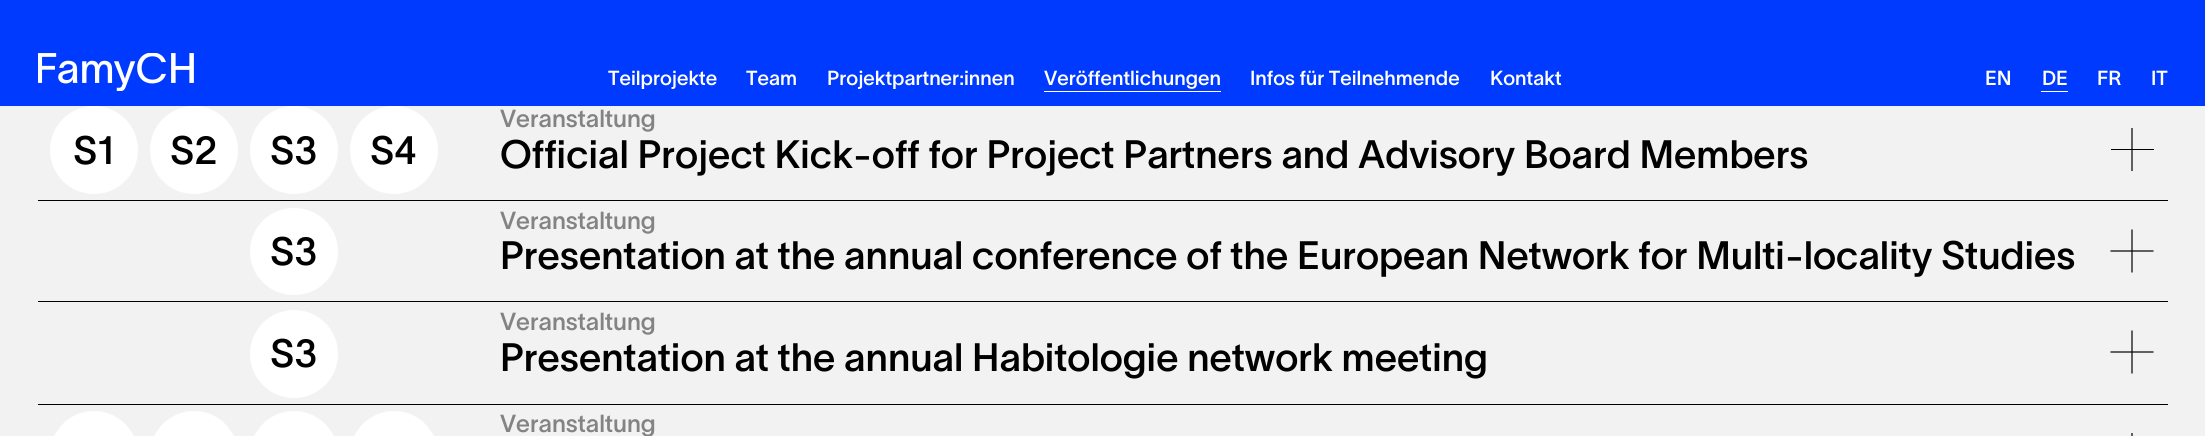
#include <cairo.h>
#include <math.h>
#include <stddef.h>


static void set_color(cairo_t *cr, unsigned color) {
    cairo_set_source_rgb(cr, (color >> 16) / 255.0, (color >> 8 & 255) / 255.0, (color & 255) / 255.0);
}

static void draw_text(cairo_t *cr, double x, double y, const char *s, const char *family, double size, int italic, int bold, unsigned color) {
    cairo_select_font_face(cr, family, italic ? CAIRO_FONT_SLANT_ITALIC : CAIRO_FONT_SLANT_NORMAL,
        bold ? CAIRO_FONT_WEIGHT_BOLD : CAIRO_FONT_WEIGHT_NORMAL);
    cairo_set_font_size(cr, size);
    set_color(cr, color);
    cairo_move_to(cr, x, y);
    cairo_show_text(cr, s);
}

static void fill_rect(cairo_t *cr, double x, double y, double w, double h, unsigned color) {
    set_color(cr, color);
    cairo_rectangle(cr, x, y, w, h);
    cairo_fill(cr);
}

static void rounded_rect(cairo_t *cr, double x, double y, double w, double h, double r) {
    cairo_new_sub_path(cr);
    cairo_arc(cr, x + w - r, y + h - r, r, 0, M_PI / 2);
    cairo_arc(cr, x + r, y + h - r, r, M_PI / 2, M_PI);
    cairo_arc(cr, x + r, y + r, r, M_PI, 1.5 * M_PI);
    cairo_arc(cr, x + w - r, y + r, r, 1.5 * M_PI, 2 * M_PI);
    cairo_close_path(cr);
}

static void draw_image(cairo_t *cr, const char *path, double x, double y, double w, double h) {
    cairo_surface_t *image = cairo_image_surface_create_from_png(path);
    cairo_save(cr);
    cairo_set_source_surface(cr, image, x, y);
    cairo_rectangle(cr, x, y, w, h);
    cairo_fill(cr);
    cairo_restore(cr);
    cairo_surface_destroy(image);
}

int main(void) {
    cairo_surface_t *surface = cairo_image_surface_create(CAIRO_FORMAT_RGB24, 2205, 436);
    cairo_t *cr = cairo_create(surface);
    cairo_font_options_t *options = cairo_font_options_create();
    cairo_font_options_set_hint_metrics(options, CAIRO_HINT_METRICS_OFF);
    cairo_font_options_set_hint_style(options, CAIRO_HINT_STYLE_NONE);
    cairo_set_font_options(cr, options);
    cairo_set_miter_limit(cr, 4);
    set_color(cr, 0xF2F2F2);
    cairo_paint(cr);
    fill_rect(cr, 0, 0, 2205, 106, 0x003AFF);
    draw_image(cr, "assets/img1.png", 38, 53, 156, 38);
    draw_text(cr, 608, 85, "Teilprojekte", "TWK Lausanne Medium", 20, 0, 0, 0xFFFFFF);
    draw_text(cr, 746, 85, "Team", "TWK Lausanne Medium", 20, 0, 0, 0xFFFFFF);
    draw_text(cr, 827, 85, "Projektpartner:innen", "TWK Lausanne Medium", 20, 0, 0, 0xFFFFFF);
    draw_text(cr, 1044, 85, "Veröffentlichungen", "TWK Lausanne Medium", 20, 0, 0, 0xFFFFFF);
    fill_rect(cr, 1044, 91, 177, 1, 0xFFFFFF);
    draw_text(cr, 1250, 85, "Infos für Teilnehmende", "TWK Lausanne Medium", 20, 0, 0, 0xFFFFFF);
    draw_text(cr, 1490, 85, "Kontakt", "TWK Lausanne Medium", 20, 0, 0, 0xFFFFFF);
    draw_text(cr, 1985, 85, "EN", "TWK Lausanne Medium", 20, 0, 0, 0xFFFFFF);
    draw_text(cr, 2042, 85, "DE", "TWK Lausanne Medium", 20, 0, 0, 0xFFFFFF);
    fill_rect(cr, 2041, 91, 27, 1, 0xFFFFFF);
    draw_text(cr, 2097, 85, "FR", "TWK Lausanne Medium", 20, 0, 0, 0xFFFFFF);
    draw_text(cr, 2151, 85, "IT", "TWK Lausanne Medium", 20, 0, 0, 0xFFFFFF);
    fill_rect(cr, 38, 200, 2130, 1, 0x000000);
    set_color(cr, 0xFFFFFF);
    cairo_new_path(cr);
    cairo_arc(cr, 94, 150, 44, 0, 2 * M_PI);
    cairo_fill(cr);
    draw_text(cr, 73, 164, "S1", "TWK Lausanne Medium", 38.9, 0, 0, 0x000000);
    set_color(cr, 0xFFFFFF);
    cairo_new_path(cr);
    cairo_arc(cr, 194, 150, 44, 0, 2 * M_PI);
    cairo_fill(cr);
    draw_text(cr, 170, 164, "S2", "TWK Lausanne Medium", 38.9, 0, 0, 0x000000);
    set_color(cr, 0xFFFFFF);
    cairo_new_path(cr);
    cairo_arc(cr, 294, 150, 44, 0, 2 * M_PI);
    cairo_fill(cr);
    draw_text(cr, 270, 164, "S3", "TWK Lausanne Medium", 38.9, 0, 0, 0x000000);
    set_color(cr, 0xFFFFFF);
    cairo_new_path(cr);
    cairo_arc(cr, 394, 150, 44, 0, 2 * M_PI);
    cairo_fill(cr);
    draw_text(cr, 370, 164, "S4", "TWK Lausanne Medium", 38.9, 0, 0, 0x000000);
    draw_text(cr, 500, 127, "Veranstaltung", "TWK Lausanne Medium", 24.25, 0, 0, 0x838383);
    draw_text(cr, 500, 168, "Official Project Kick-off for Project Partners and Advisory Board Members", "TWK Lausanne Medium", 38.9, 0, 0, 0x000000);
    fill_rect(cr, 2111, 149, 43, 1, 0x000000);
    cairo_new_path(cr);
    cairo_move_to(cr, 2132, 171);
    cairo_line_to(cr, 2132, 128);
    cairo_set_line_width(cr, 1.2);
    cairo_stroke(cr);
    fill_rect(cr, 38, 301, 2130, 1, 0x000000);
    set_color(cr, 0xFFFFFF);
    rounded_rect(cr, 250, 208, 88, 87, 43.5);
    cairo_fill(cr);
    draw_text(cr, 270, 265, "S3", "TWK Lausanne Medium", 38.9, 0, 0, 0x000000);
    draw_text(cr, 500, 229, "Veranstaltung", "TWK Lausanne Medium", 24.25, 0, 0, 0x838383);
    draw_text(cr, 500, 269, "Presentation at the annual conference of the European Network for Multi-locality Studies", "TWK Lausanne Medium", 38.9, 0, 0, 0x000000);
    cairo_new_path(cr);
    cairo_move_to(cr, 2153.5, 251);
    cairo_line_to(cr, 2110.5, 251);
    cairo_move_to(cr, 2132, 272.5);
    cairo_line_to(cr, 2132, 229.5);
    cairo_stroke(cr);
    fill_rect(cr, 38, 404, 2130, 1, 0x000000);
    set_color(cr, 0xFFFFFF);
    cairo_arc(cr, 294, 354, 44, 0, 2 * M_PI);
    cairo_fill(cr);
    draw_text(cr, 270, 367, "S3", "TWK Lausanne Medium", 38.9, 0, 0, 0x000000);
    draw_text(cr, 500, 330, "Veranstaltung", "TWK Lausanne Medium", 24.25, 0, 0, 0x838383);
    draw_text(cr, 500, 371, "Presentation at the annual Habitologie network meeting", "TWK Lausanne Medium", 38.9, 0, 0, 0x000000);
    cairo_new_path(cr);
    cairo_move_to(cr, 2153.5, 352);
    cairo_line_to(cr, 2110.5, 352);
    cairo_move_to(cr, 2132, 373.5);
    cairo_line_to(cr, 2132, 330.5);
    cairo_stroke(cr);
    set_color(cr, 0xFFFFFF);
    rounded_rect(cr, 50, 411, 88, 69, 44);
    cairo_fill(cr);
    rounded_rect(cr, 150, 411, 88, 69, 44);
    cairo_fill(cr);
    rounded_rect(cr, 250, 411, 88, 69, 44);
    cairo_fill(cr);
    rounded_rect(cr, 350, 411, 88, 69, 44);
    cairo_fill(cr);
    draw_text(cr, 500, 432, "Veranstaltung", "TWK Lausanne Medium", 24.25, 0, 0, 0x838383);
    cairo_new_path(cr);
    cairo_move_to(cr, 2132, 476);
    cairo_line_to(cr, 2132, 433);
    set_color(cr, 0x000000);
    cairo_stroke(cr);
    cairo_surface_write_to_png(surface, "output.png");
    cairo_font_options_destroy(options);
    cairo_destroy(cr);
    cairo_surface_destroy(surface);
    return 0;
}
